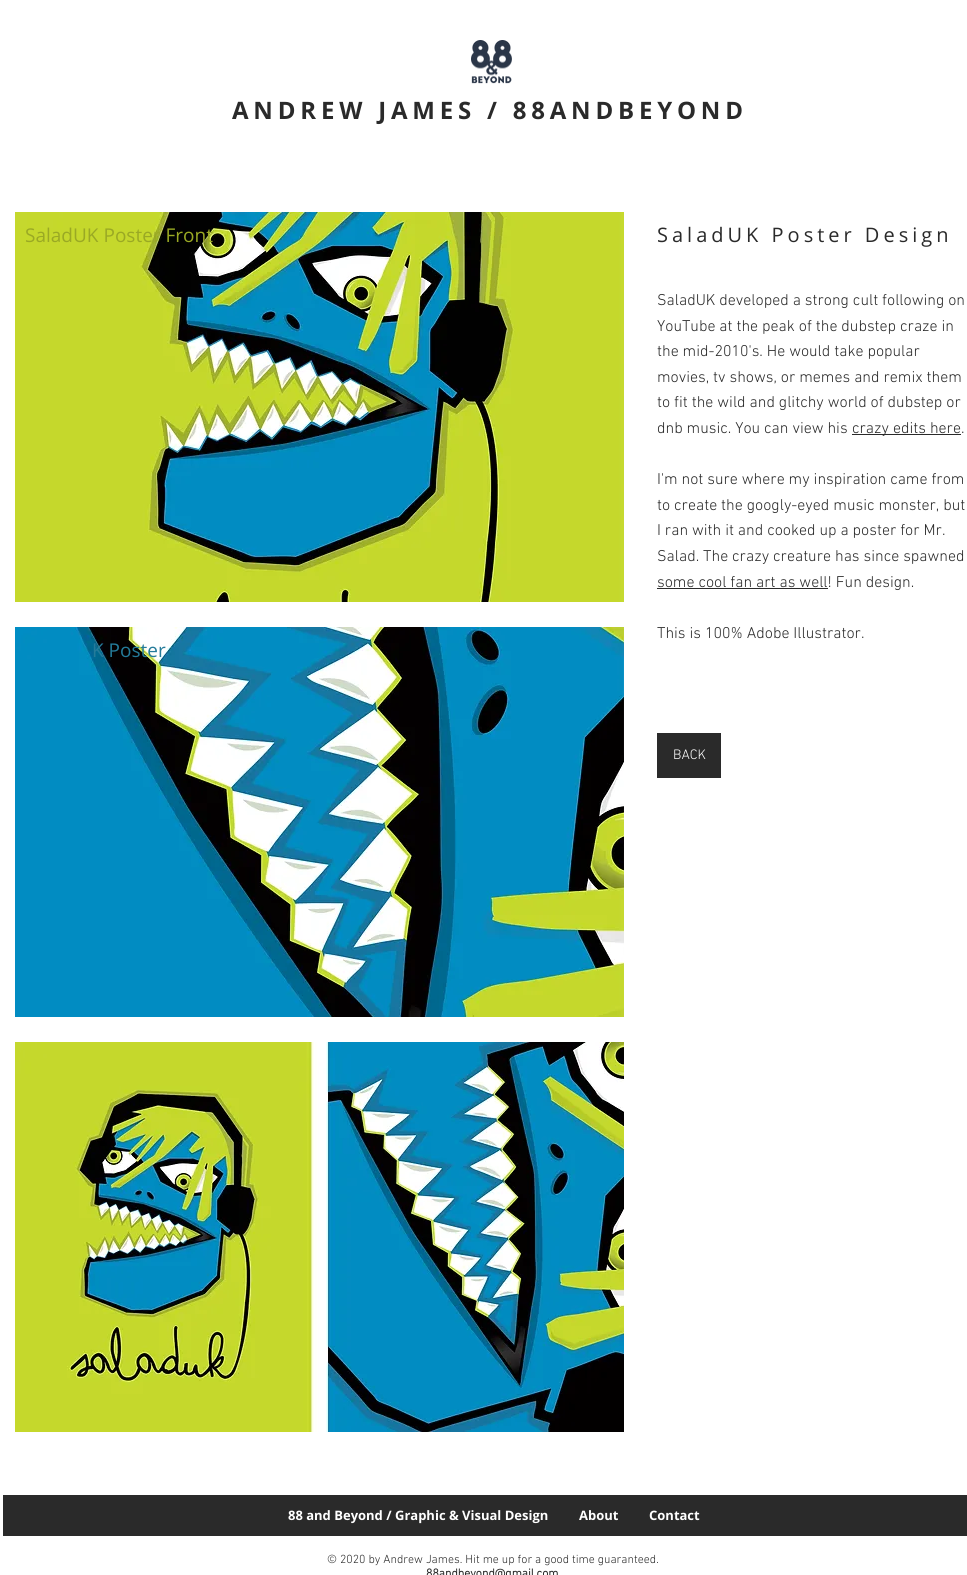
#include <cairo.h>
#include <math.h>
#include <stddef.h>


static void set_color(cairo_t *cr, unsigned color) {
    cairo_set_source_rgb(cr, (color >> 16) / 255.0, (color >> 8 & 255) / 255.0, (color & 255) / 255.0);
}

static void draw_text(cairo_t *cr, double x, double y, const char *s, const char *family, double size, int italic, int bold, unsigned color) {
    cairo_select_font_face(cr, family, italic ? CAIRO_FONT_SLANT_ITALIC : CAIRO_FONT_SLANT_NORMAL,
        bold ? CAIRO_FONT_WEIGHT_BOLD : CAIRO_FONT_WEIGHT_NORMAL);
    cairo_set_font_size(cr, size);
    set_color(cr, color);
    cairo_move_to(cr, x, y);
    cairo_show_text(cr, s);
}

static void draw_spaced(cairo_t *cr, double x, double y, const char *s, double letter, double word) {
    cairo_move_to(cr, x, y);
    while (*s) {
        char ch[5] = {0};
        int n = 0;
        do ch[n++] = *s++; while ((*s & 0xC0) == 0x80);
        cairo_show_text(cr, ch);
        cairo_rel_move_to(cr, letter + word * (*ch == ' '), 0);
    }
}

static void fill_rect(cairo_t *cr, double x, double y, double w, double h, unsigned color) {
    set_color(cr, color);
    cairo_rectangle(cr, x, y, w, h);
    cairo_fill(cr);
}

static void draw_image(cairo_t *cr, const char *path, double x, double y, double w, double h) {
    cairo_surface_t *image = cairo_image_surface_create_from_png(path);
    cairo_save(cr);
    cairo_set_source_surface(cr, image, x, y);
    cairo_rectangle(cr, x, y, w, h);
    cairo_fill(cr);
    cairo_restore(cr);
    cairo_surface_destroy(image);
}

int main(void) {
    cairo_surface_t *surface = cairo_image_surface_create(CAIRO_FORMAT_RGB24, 967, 1575);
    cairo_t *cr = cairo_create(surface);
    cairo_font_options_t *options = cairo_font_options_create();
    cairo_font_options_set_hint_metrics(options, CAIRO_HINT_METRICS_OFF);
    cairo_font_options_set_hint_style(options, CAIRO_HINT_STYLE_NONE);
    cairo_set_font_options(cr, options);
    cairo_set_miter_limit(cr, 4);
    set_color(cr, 0xFFFFFF);
    cairo_paint(cr);
    draw_image(cr, "assets/img1.png", 471, 40, 41, 44);
    cairo_select_font_face(cr, "Open Sans", CAIRO_FONT_SLANT_NORMAL, CAIRO_FONT_WEIGHT_BOLD);
    cairo_set_font_size(cr, 24);
    set_color(cr, 0x2A2A2A);
    draw_spaced(cr, 232, 119, "ANDREW JAMES / 88ANDBEYOND", 4.8, 0);
    draw_image(cr, "assets/img2.png", 15, 212, 609, 390);
    draw_text(cr, 25, 242, "SaladUK Poster Front", "Open Sans", 19, 0, 0, 0x9AA924);
    draw_image(cr, "assets/img3.png", 15, 627, 609, 390);
    draw_text(cr, 92, 657, "K Poster", "Open Sans", 19, 0, 0, 0x247B9A);
    draw_image(cr, "assets/img4.png", 15, 1042, 609, 390);
    cairo_set_font_size(cr, 20);
    set_color(cr, 0x2A2A2A);
    draw_spaced(cr, 657, 242, "SaladUK Poster Design", 4, 0);
    draw_text(cr, 657, 305, "SaladUK developed a strong cult following on", "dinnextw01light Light", 16, 0, 0, 0x2A2A2A);
    draw_text(cr, 657, 331, "YouTube at the peak of the dubstep craze in", "dinnextw01light Light", 16, 0, 0, 0x2A2A2A);
    draw_text(cr, 657, 356, "the mid-2010's. He would take popular", "dinnextw01light Light", 16, 0, 0, 0x2A2A2A);
    draw_text(cr, 657, 382, "movies, tv shows, or memes and remix them", "dinnextw01light Light", 16, 0, 0, 0x2A2A2A);
    draw_text(cr, 657, 407, "to fit the wild and glitchy world of dubstep or", "dinnextw01light Light", 16, 0, 0, 0x2A2A2A);
    draw_text(cr, 657, 433, "dnb music. You can view his", "dinnextw01light Light", 16, 0, 0, 0x2A2A2A);
    fill_rect(cr, 852, 434, 109, 1, 0x2A2A2A);
    draw_text(cr, 852, 433, "crazy edits here.", "dinnextw01light Light", 16, 0, 0, 0x2A2A2A);
    draw_text(cr, 657, 484, "I'm not sure where my inspiration came from", "dinnextw01light Light", 16, 0, 0, 0x2A2A2A);
    draw_text(cr, 657, 510, "to create the googly-eyed music monster, but", "dinnextw01light Light", 16, 0, 0, 0x2A2A2A);
    draw_text(cr, 657, 535, "I ran with it and cooked up a poster for Mr.", "dinnextw01light Light", 16, 0, 0, 0x2A2A2A);
    draw_text(cr, 657, 561, "Salad. The crazy creature has since spawned", "dinnextw01light Light", 16, 0, 0, 0x2A2A2A);
    fill_rect(cr, 657, 588, 171, 1, 0x2A2A2A);
    draw_text(cr, 657, 587, "some cool fan art as well! Fun design.", "dinnextw01light Light", 16, 0, 0, 0x2A2A2A);
    draw_text(cr, 657, 638, "This is 100% Adobe Illustrator.", "dinnextw01light Light", 16, 0, 0, 0x2A2A2A);
    fill_rect(cr, 657, 733, 64, 45, 0x2A2A2A);
    draw_text(cr, 673, 759, "BACK", "dinnextw01light Light", 14, 0, 0, 0xFFFFFF);
    fill_rect(cr, 3, 1495, 964, 41, 0x2A2A2A);
    draw_text(cr, 288, 1520, "88 and Beyond / Graphic & Visual Design", "Open Sans", 13, 0, 1, 0xFFFFFF);
    draw_text(cr, 579, 1520, "About", "Open Sans", 13, 0, 1, 0xFFFFFF);
    draw_text(cr, 649, 1520, "Contact", "Open Sans", 13, 0, 1, 0xFFFFFF);
    draw_text(cr, 327, 1563, "© 2020 by Andrew James. Hit me up for a good time guaranteed.", "dinnextw01light Light", 12, 0, 0, 0x2A2A2A);
    draw_text(cr, 426, 1577, "88andbeyond@gmail.com", "dinnextw01light", 12, 0, 1, 0x2A2A2A);
    cairo_surface_write_to_png(surface, "output.png");
    cairo_font_options_destroy(options);
    cairo_destroy(cr);
    cairo_surface_destroy(surface);
    return 0;
}
